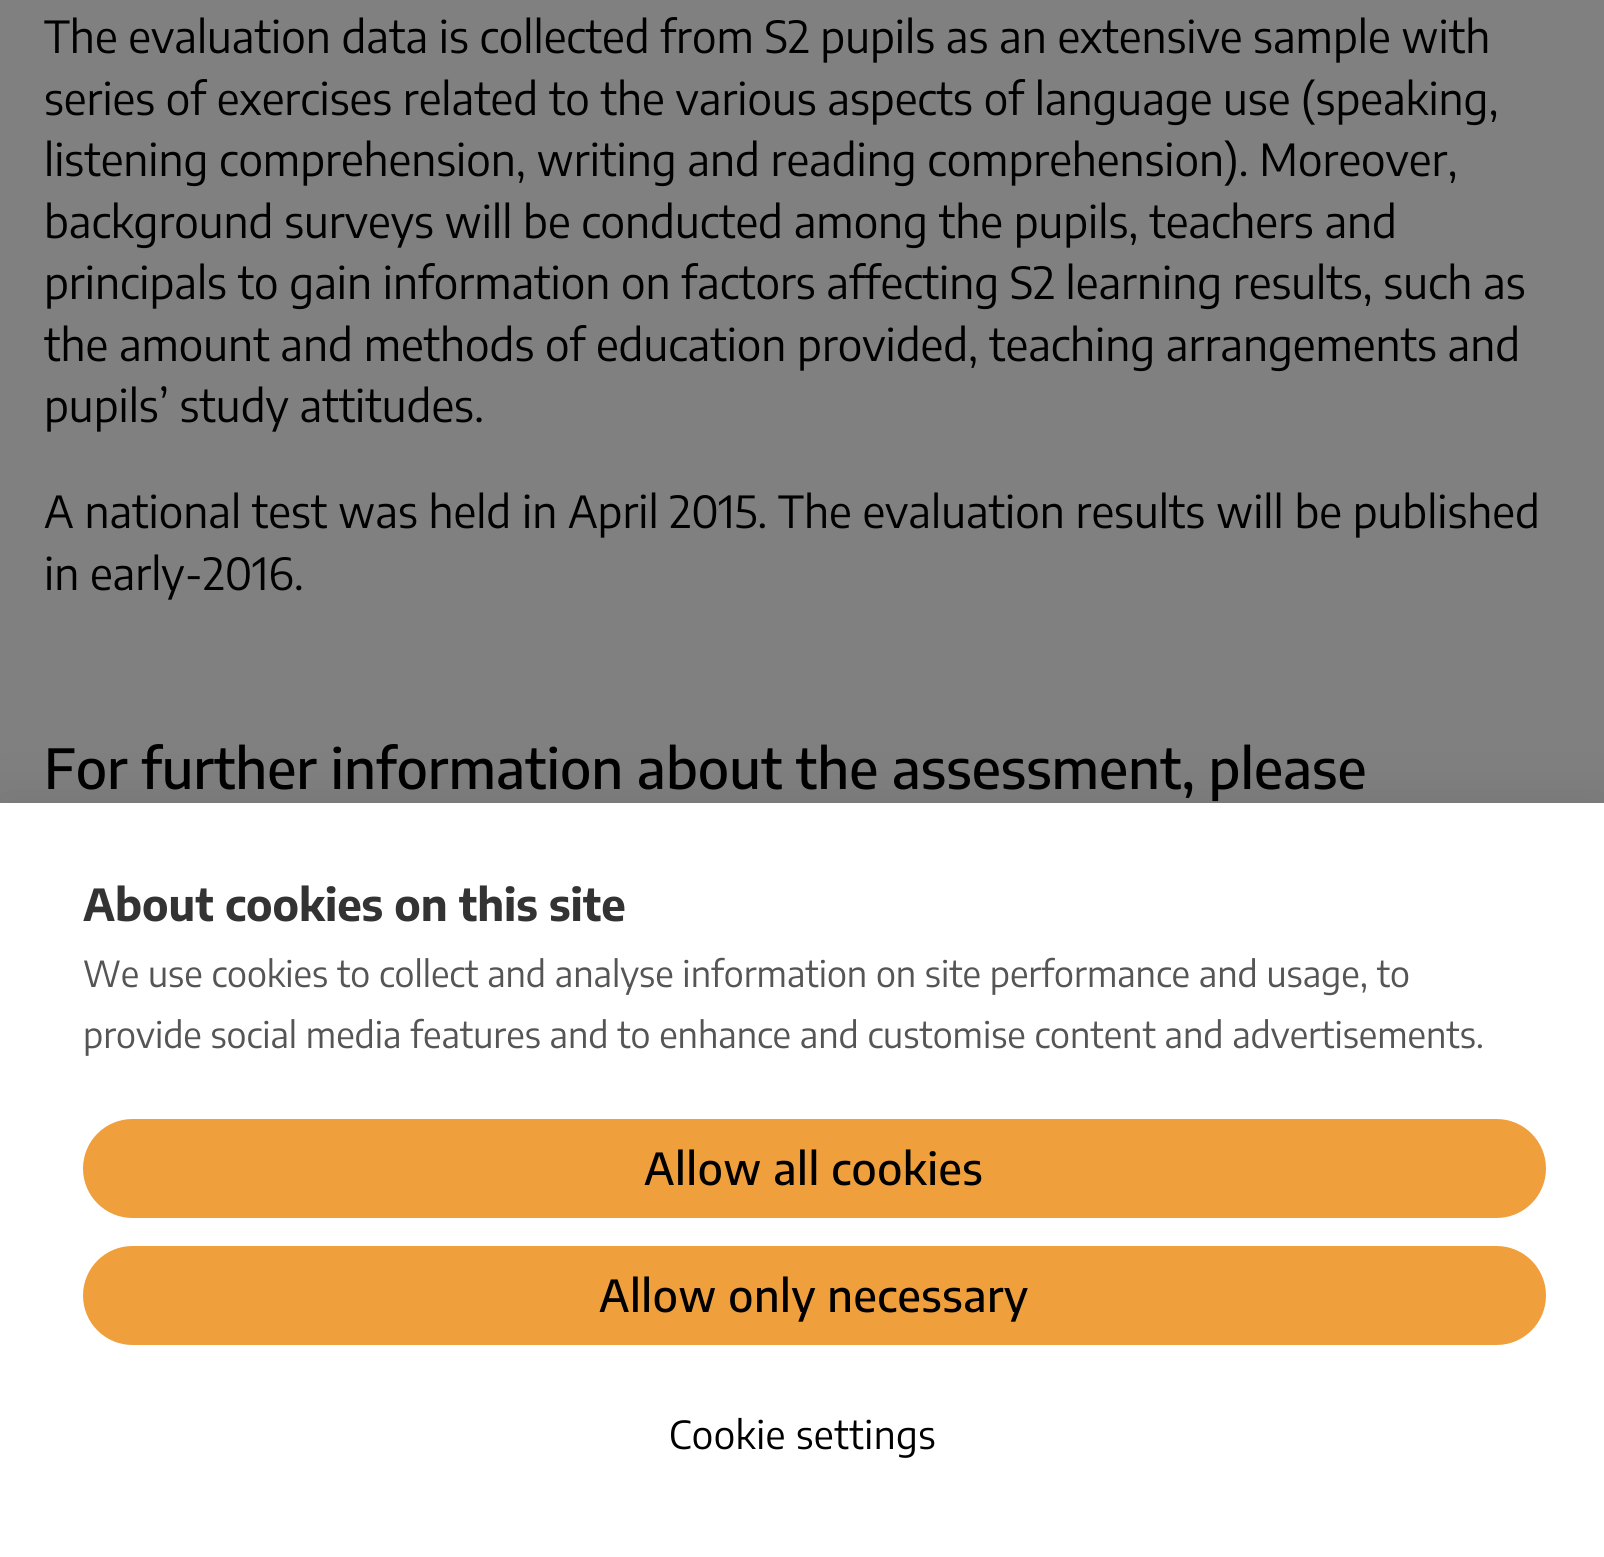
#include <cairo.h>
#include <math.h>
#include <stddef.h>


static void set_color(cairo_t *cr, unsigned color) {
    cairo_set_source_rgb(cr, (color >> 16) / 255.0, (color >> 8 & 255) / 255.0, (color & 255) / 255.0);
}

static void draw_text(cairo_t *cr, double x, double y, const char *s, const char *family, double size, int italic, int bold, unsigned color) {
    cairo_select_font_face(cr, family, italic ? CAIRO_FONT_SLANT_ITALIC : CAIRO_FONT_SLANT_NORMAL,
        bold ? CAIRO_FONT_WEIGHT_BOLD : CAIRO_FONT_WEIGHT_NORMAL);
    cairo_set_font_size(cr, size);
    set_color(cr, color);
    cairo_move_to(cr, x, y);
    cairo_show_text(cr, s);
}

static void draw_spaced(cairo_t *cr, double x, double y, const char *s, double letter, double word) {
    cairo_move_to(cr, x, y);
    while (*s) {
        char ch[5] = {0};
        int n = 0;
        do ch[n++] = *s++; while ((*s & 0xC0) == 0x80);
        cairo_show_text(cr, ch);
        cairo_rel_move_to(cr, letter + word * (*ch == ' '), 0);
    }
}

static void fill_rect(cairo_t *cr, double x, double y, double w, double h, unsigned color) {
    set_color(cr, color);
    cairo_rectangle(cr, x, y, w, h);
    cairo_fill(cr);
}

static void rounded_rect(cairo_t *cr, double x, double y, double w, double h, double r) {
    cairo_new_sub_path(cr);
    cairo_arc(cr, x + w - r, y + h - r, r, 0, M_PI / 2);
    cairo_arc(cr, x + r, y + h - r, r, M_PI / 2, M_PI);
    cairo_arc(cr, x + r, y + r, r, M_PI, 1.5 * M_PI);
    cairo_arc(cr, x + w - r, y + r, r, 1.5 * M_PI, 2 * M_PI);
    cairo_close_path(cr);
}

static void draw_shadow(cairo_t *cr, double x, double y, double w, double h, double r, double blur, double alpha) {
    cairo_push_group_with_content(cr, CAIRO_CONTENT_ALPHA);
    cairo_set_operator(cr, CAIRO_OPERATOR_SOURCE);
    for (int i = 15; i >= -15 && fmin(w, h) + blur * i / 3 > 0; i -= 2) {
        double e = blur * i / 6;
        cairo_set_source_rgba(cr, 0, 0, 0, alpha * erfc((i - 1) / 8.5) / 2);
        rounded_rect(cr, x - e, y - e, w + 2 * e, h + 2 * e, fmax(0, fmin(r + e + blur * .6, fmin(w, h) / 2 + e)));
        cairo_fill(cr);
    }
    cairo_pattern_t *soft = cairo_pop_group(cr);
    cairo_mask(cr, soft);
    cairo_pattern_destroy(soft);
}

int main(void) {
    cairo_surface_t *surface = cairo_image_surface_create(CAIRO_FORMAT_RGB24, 1604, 1557);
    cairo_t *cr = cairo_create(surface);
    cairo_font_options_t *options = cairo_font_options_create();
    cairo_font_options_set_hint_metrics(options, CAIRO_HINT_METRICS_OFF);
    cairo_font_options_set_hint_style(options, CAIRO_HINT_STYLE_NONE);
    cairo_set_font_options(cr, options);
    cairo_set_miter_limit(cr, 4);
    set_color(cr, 0x808080);
    cairo_paint(cr);
    draw_text(cr, 44, 53, "The evaluation data is collected from S2 pupils as an extensive sample with", "Encode Sans Condensed", 44, 0, 0, 0x000000);
    draw_text(cr, 44, 115, "series of exercises related to the various aspects of language use (speaking,", "Encode Sans Condensed", 44, 0, 0, 0x000000);
    draw_text(cr, 44, 176, "listening comprehension, writing and reading comprehension). Moreover,", "Encode Sans Condensed", 44, 0, 0, 0x000000);
    draw_text(cr, 44, 238, "background surveys will be conducted among the pupils, teachers and", "Encode Sans Condensed", 44, 0, 0, 0x000000);
    draw_text(cr, 44, 299, "principals to gain information on factors affecting S2 learning results, such as", "Encode Sans Condensed", 44, 0, 0, 0x000000);
    draw_text(cr, 44, 361, "the amount and methods of education provided, teaching arrangements and", "Encode Sans Condensed", 44, 0, 0, 0x000000);
    draw_text(cr, 44, 422, "pupils’ study attitudes.", "Encode Sans Condensed", 44, 0, 0, 0x000000);
    draw_text(cr, 44, 528, "A national test was held in April 2015. The evaluation results will be published", "Encode Sans Condensed", 44, 0, 0, 0x000000);
    draw_text(cr, 44, 590, "in early-2016.", "Encode Sans Condensed", 44, 0, 0, 0x000000);
    draw_text(cr, 44, 789, "For further information about the assessment, please", "Encode Sans Condensed Medium", 55, 0, 0, 0x000000);
    set_color(cr, 0x000000);
    draw_shadow(cr, 0, 803, 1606, 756, 0, 27.5, 0.1);
    fill_rect(cr, 0, 803, 1604, 754, 0xFFFFFF);
    draw_text(cr, 83, 921, "About cookies on this site", "Encode Sans Condensed", 44, 0, 1, 0x333333);
    draw_text(cr, 83, 987, "We use cookies to collect and analyse information on site performance and usage, to", "Encode Sans Condensed", 35.75, 0, 0, 0x555555);
    draw_text(cr, 83, 1048, "provide social media features and to enhance and customise content and advertisements.", "Encode Sans Condensed", 35.75, 0, 0, 0x555555);
    set_color(cr, 0xEF9F3C);
    rounded_rect(cr, 83, 1119, 1463, 99, 49.5);
    cairo_fill(cr);
    cairo_select_font_face(cr, "Encode Sans Condensed Medium", CAIRO_FONT_SLANT_NORMAL, CAIRO_FONT_WEIGHT_NORMAL);
    cairo_set_font_size(cr, 44);
    set_color(cr, 0x000000);
    draw_spaced(cr, 644, 1185, "Allow all cookies", 0.55, 0);
    set_color(cr, 0xEF9F3C);
    rounded_rect(cr, 83, 1246, 1463, 99, 49.5);
    cairo_fill(cr);
    set_color(cr, 0x000000);
    draw_spaced(cr, 599, 1312, "Allow only necessary", 0.55, 0);
    cairo_select_font_face(cr, "Encode Sans Condensed", CAIRO_FONT_SLANT_NORMAL, CAIRO_FONT_WEIGHT_NORMAL);
    cairo_set_font_size(cr, 38.5);
    draw_spaced(cr, 669, 1449, "Cookie settings", 0.55, 0);
    cairo_surface_write_to_png(surface, "output.png");
    cairo_font_options_destroy(options);
    cairo_destroy(cr);
    cairo_surface_destroy(surface);
    return 0;
}
